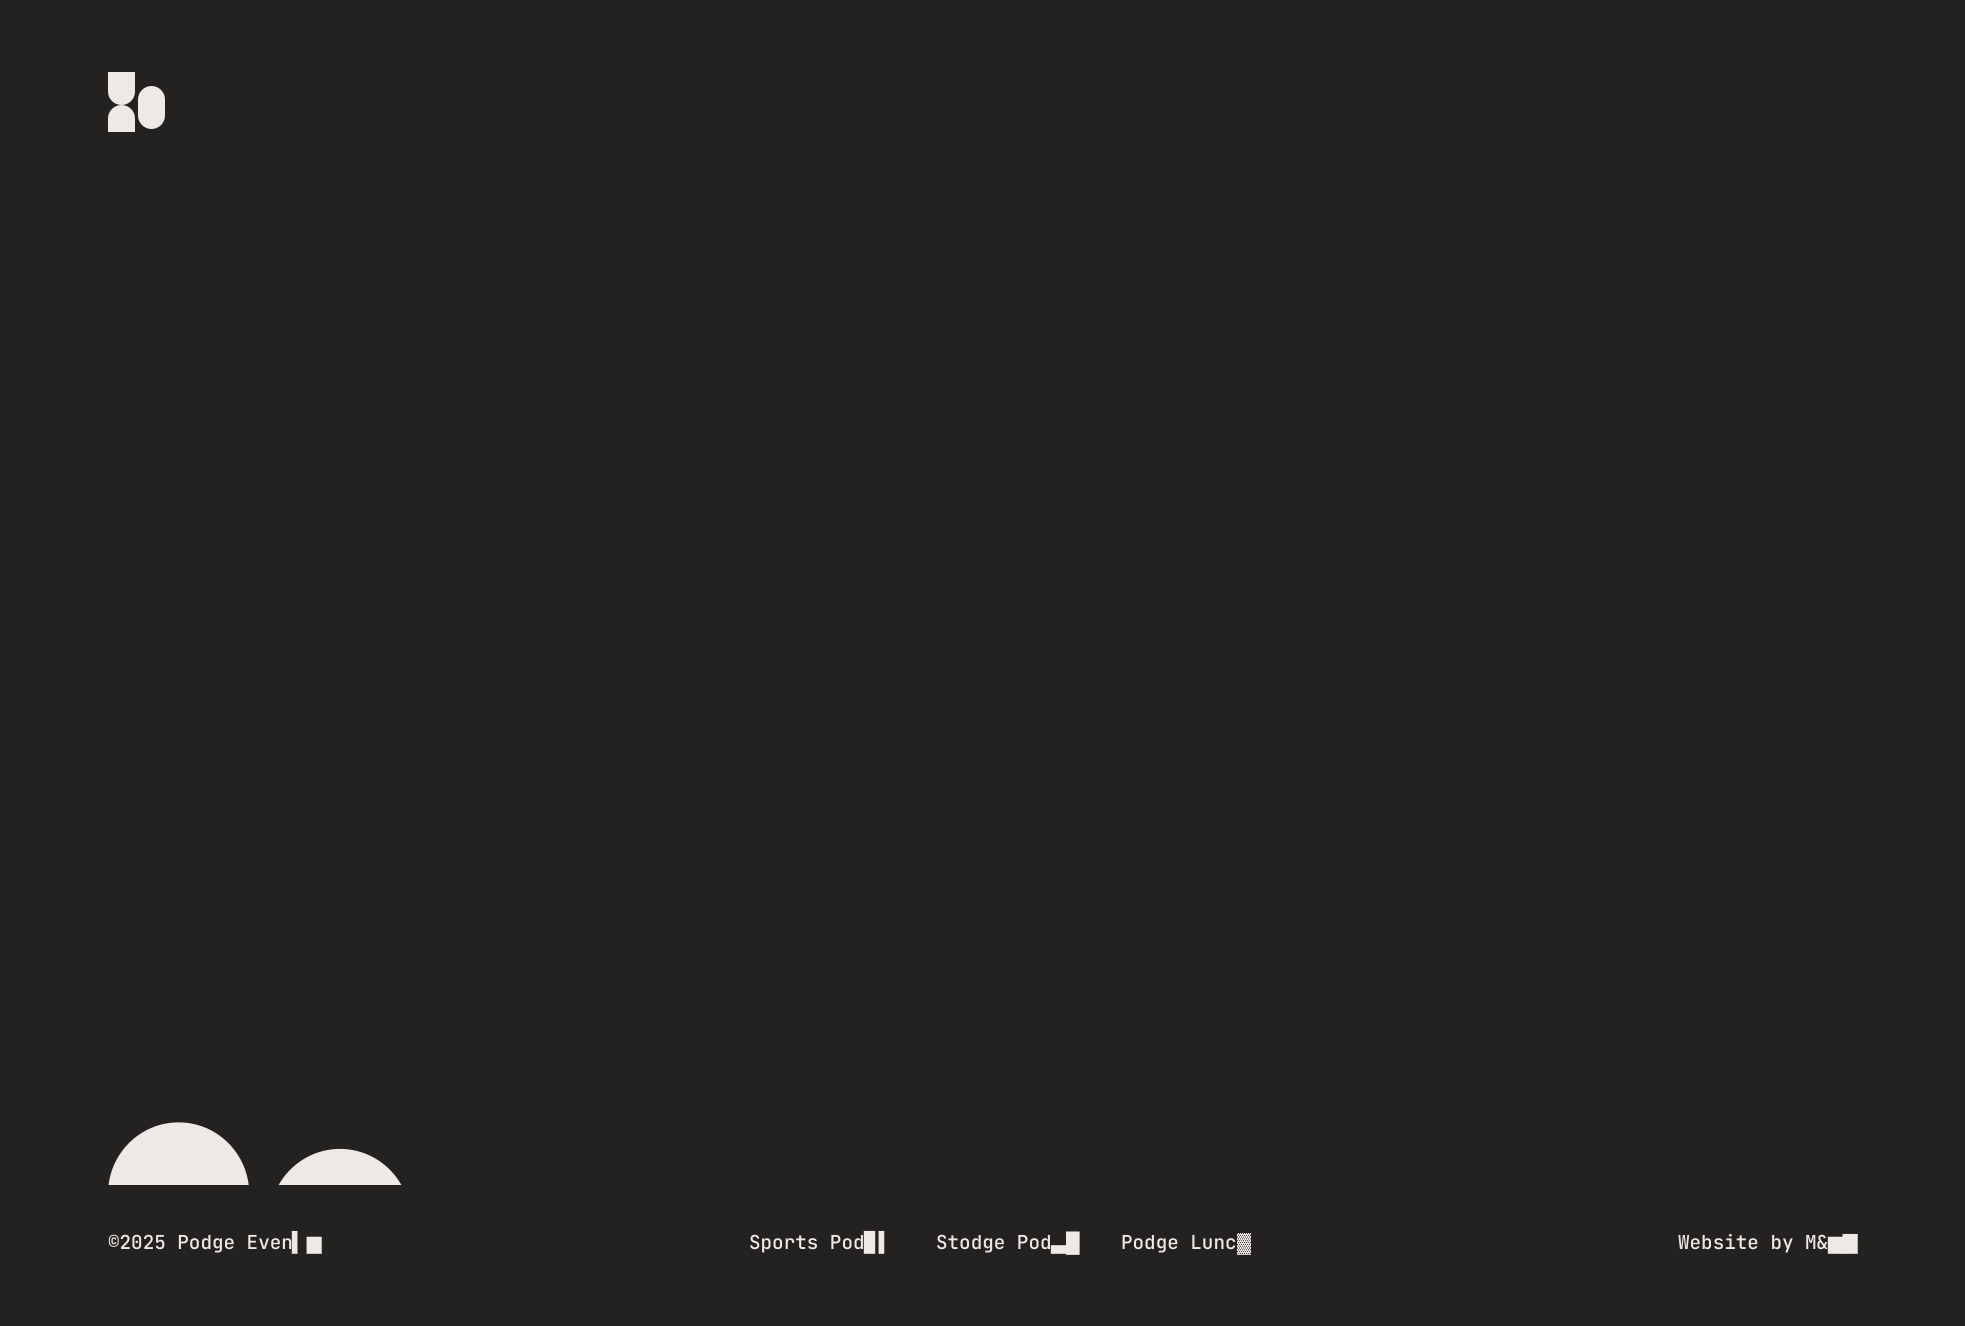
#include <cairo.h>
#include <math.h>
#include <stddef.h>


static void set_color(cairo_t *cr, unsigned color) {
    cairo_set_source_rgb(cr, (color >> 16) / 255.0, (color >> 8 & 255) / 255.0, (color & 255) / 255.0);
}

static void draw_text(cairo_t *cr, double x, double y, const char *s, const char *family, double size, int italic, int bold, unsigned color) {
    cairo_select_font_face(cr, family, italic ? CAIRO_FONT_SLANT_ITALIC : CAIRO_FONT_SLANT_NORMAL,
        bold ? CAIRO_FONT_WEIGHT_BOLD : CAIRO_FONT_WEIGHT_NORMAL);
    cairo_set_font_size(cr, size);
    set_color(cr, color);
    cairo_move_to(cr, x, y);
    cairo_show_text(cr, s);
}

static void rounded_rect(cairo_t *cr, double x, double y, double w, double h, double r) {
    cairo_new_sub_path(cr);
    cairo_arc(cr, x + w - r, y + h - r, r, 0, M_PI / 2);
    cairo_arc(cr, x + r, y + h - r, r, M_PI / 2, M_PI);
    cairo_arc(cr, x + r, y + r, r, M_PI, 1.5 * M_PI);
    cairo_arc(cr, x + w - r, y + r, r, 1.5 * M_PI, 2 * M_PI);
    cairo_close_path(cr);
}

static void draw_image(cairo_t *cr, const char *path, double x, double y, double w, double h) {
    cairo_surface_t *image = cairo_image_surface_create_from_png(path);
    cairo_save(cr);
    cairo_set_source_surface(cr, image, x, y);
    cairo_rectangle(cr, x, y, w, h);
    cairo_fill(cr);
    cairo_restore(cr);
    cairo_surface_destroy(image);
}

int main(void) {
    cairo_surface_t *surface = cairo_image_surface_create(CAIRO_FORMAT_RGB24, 1965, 1326);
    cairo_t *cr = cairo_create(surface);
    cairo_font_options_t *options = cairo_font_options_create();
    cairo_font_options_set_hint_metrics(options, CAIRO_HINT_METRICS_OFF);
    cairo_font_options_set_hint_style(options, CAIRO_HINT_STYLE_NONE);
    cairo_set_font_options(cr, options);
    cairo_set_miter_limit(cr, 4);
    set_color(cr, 0x242121);
    cairo_paint(cr);
    set_color(cr, 0xEFE9E6);
    cairo_new_path(cr);
    cairo_move_to(cr, 108, 72);
    cairo_line_to(cr, 135, 72);
    cairo_line_to(cr, 135, 91.5);
    cairo_curve_to(cr, 135, 99, 129, 105, 121.5, 105);
    cairo_curve_to(cr, 114, 105, 108, 99, 108, 91.5);
    cairo_close_path(cr);
    cairo_fill(cr);
    rounded_rect(cr, 138, 86, 27, 43, 13.5);
    cairo_fill(cr);
    cairo_new_path(cr);
    cairo_move_to(cr, 121.5, 105);
    cairo_curve_to(cr, 129, 105, 135, 111, 135, 118.5);
    cairo_line_to(cr, 135, 132);
    cairo_line_to(cr, 108, 132);
    cairo_line_to(cr, 108, 118.5);
    cairo_curve_to(cr, 108, 111, 114, 105, 121.5, 105);
    cairo_close_path(cr);
    cairo_fill(cr);
    draw_image(cr, "assets/img1.png", 108, 1122, 294, 63);
    draw_text(cr, 108, 1249, "©2025 Podge Even", "JetBrains Mono Medium", 19.25, 0, 0, 0xEFE9E6);
    draw_text(cr, 292, 1249, "▍▆", "DejaVu Sans", 19.25, 0, 0, 0xEFE9E6);
    draw_text(cr, 749, 1249, "Sports Pod", "JetBrains Mono Medium", 19.25, 0, 0, 0xEFE9E6);
    draw_text(cr, 864, 1249, "▊▍", "DejaVu Sans", 19.25, 0, 0, 0xEFE9E6);
    draw_text(cr, 936, 1249, "Stodge Pod", "JetBrains Mono Medium", 19.25, 0, 0, 0xEFE9E6);
    draw_text(cr, 1051, 1249, "▃", "DejaVu Sans", 19.25, 0, 0, 0xEFE9E6);
    draw_text(cr, 1066, 1249, "█", "Liberation Sans", 19.25, 0, 0, 0xEFE9E6);
    draw_text(cr, 1121, 1249, "Podge Lunc", "JetBrains Mono Medium", 19.25, 0, 0, 0xEFE9E6);
    draw_text(cr, 1237, 1249, "▓", "Liberation Sans", 19.25, 0, 0, 0xEFE9E6);
    draw_text(cr, 1678, 1249, "Website by M&", "JetBrains Mono Medium", 19.25, 0, 0, 0xEFE9E6);
    draw_text(cr, 1828, 1249, "▆▇", "DejaVu Sans", 19.25, 0, 0, 0xEFE9E6);
    cairo_surface_write_to_png(surface, "output.png");
    cairo_font_options_destroy(options);
    cairo_destroy(cr);
    cairo_surface_destroy(surface);
    return 0;
}
